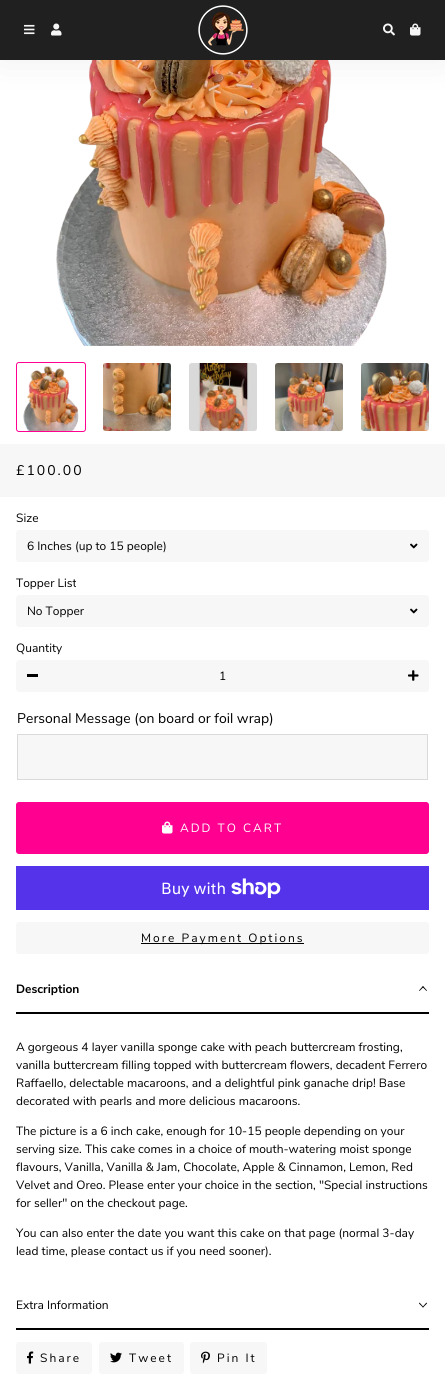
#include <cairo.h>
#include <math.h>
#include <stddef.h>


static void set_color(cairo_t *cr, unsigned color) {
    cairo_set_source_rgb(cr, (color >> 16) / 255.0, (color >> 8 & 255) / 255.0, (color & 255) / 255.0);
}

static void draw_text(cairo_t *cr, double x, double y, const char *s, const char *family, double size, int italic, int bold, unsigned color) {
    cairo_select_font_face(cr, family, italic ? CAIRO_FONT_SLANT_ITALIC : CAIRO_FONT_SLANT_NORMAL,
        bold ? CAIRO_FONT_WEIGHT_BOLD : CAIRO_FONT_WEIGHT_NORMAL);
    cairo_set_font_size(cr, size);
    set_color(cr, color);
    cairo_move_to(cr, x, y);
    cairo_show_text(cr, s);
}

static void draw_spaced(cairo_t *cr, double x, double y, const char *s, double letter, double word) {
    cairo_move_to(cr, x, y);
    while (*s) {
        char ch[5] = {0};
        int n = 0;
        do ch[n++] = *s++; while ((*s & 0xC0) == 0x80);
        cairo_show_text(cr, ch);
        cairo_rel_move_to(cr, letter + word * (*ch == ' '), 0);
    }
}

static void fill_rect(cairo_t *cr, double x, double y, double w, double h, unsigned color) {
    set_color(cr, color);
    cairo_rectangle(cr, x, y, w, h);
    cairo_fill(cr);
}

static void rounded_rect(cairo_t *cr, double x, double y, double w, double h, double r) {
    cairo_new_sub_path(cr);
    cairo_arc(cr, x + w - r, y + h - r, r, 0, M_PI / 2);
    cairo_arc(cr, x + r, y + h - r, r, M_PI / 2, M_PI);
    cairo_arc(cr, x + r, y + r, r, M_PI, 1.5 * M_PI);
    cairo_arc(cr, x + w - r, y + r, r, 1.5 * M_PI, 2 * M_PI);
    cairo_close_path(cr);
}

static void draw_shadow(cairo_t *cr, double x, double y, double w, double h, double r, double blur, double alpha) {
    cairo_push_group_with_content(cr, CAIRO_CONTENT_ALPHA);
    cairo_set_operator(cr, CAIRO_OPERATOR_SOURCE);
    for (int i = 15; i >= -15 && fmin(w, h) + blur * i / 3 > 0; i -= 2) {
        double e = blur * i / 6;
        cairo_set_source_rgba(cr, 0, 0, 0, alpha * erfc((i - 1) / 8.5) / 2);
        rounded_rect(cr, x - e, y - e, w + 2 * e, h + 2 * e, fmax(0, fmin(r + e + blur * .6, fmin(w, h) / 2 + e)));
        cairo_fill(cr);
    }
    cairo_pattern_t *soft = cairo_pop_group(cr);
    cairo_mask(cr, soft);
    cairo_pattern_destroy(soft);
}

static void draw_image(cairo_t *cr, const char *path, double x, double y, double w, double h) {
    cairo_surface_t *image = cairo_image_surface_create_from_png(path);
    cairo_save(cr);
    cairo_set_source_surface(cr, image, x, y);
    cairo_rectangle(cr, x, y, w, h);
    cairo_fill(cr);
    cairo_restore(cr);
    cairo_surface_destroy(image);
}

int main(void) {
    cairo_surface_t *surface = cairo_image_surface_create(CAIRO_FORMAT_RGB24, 445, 1383);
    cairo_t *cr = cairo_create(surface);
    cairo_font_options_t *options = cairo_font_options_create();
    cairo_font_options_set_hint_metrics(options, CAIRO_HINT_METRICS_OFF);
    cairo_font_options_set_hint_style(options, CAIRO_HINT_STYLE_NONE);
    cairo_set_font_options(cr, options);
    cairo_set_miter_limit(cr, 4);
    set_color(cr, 0xFFFFFF);
    cairo_paint(cr);
    draw_image(cr, "assets/img6.png", 56, 60, 331, 286);
    set_color(cr, 0x000000);
    draw_shadow(cr, 0, 0, 445, 60, 0, 20, 0.07);
    fill_rect(cr, 0, 0, 445, 60, 0x202020);
    draw_image(cr, "assets/img1.png", 24, 24, 11, 11);
    draw_image(cr, "assets/img2.png", 51, 23, 11, 13);
    draw_image(cr, "assets/img3.png", 198, 5, 50, 50);
    draw_image(cr, "assets/img4.png", 383, 23, 12, 13);
    draw_image(cr, "assets/img5.png", 410, 23, 11, 13);
    rounded_rect(cr, 16.5, 362.5, 69, 69, 2.5);
    set_color(cr, 0xFF0091);
    cairo_set_line_width(cr, 1);
    cairo_stroke(cr);
    draw_image(cr, "assets/img7.png", 23, 366, 56, 65);
    draw_image(cr, "assets/img8.png", 103, 363, 68, 68);
    draw_image(cr, "assets/img9.png", 189, 363, 68, 68);
    draw_image(cr, "assets/img10.png", 275, 363, 68, 68);
    draw_image(cr, "assets/img11.png", 361, 363, 68, 68);
    fill_rect(cr, 0, 444, 445, 53, 0xF7F7F7);
    cairo_select_font_face(cr, "Nunito Sans", CAIRO_FONT_SLANT_NORMAL, CAIRO_FONT_WEIGHT_NORMAL);
    cairo_set_font_size(cr, 14);
    set_color(cr, 0x000000);
    draw_spaced(cr, 16, 475, "£100.00", 2, 0);
    draw_text(cr, 16, 522, "Size", "Nunito Sans", 12, 0, 0, 0x000000);
    set_color(cr, 0xF7F7F7);
    rounded_rect(cr, 16, 530, 413, 32, 3);
    cairo_fill(cr);
    draw_image(cr, "assets/img12.png", 410, 543, 8, 6);
    draw_text(cr, 27, 550, "6 Inches (up to 15 people)", "Nunito Sans", 12, 0, 0, 0x000000);
    draw_text(cr, 16, 587, "Topper List", "Nunito Sans", 12, 0, 0, 0x000000);
    set_color(cr, 0xF7F7F7);
    rounded_rect(cr, 16, 595, 413, 32, 3);
    cairo_fill(cr);
    draw_image(cr, "assets/img12.png", 410, 608, 8, 6);
    draw_text(cr, 27, 615, "No Topper", "Nunito Sans", 12, 0, 0, 0x000000);
    draw_text(cr, 16, 652, "Quantity", "Nunito Sans", 12, 0, 0, 0x000000);
    set_color(cr, 0xF7F7F7);
    rounded_rect(cr, 16, 660, 413, 32, 3);
    cairo_fill(cr);
    fill_rect(cr, 27, 674, 11, 3, 0x000000);
    draw_text(cr, 219, 680, "1", "Nunito Sans", 12, 0, 0, 0x000000);
    draw_image(cr, "assets/img13.png", 408, 670, 11, 11);
    draw_text(cr, 17, 723, "Personal Message (on board or foil wrap)", "Nunito Sans", 14, 0, 0, 0x000000);
    set_color(cr, 0xF7F7F7);
    cairo_rectangle(cr, 17.5, 734.5, 410, 45);
    cairo_fill_preserve(cr);
    set_color(cr, 0xDADADA);
    cairo_stroke(cr);
    set_color(cr, 0xFF0091);
    rounded_rect(cr, 16.5, 802.5, 412, 51, 2.5);
    cairo_fill_preserve(cr);
    cairo_stroke(cr);
    draw_image(cr, "assets/img14.png", 162, 821, 11, 13);
    cairo_set_font_size(cr, 12);
    set_color(cr, 0xFFFFFF);
    draw_spaced(cr, 180, 832, "ADD TO CART", 2, 0);
    fill_rect(cr, 16, 866, 413, 44, 0x5433EB);
    draw_text(cr, 161, 894, "Buy with", "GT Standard", 16, 0, 0, 0xFFFFFF);
    draw_image(cr, "assets/img15.png", 231, 878, 50, 20);
    set_color(cr, 0xF7F7F7);
    rounded_rect(cr, 16, 922, 413, 32, 3);
    cairo_fill(cr);
    fill_rect(cr, 141, 943, 163, 1, 0x000000);
    cairo_select_font_face(cr, "Nunito Sans", CAIRO_FONT_SLANT_NORMAL, CAIRO_FONT_WEIGHT_NORMAL);
    cairo_set_font_size(cr, 12);
    draw_spaced(cr, 141, 942, "More Payment Options", 2, 0);
    fill_rect(cr, 16, 1012, 413, 2, 0x000000);
    draw_text(cr, 16, 993, "Description", "Nunito Sans", 12, 0, 1, 0x000000);
    cairo_new_path(cr);
    cairo_move_to(cr, 419.5, 991);
    cairo_line_to(cr, 419, 990.5);
    cairo_line_to(cr, 423, 986);
    cairo_line_to(cr, 423.5, 987);
    cairo_close_path(cr);
    cairo_fill(cr);
    cairo_new_path(cr);
    cairo_move_to(cr, 426.5, 991);
    cairo_line_to(cr, 422.5, 987);
    cairo_line_to(cr, 423, 986);
    cairo_line_to(cr, 427, 990.5);
    cairo_close_path(cr);
    cairo_fill(cr);
    draw_text(cr, 16, 1051, "A gorgeous 4 layer vanilla sponge cake with peach buttercream frosting,", "Nunito Sans", 12, 0, 0, 0x000000);
    draw_text(cr, 16, 1069, "vanilla buttercream filling topped with buttercream flowers, decadent Ferrero", "Nunito Sans", 12, 0, 0, 0x000000);
    draw_text(cr, 16, 1087, "Raffaello, delectable macaroons, and a delightful pink ganache drip! Base", "Nunito Sans", 12, 0, 0, 0x000000);
    draw_text(cr, 16, 1105, "decorated with pearls and more delicious macaroons.", "Nunito Sans", 12, 0, 0, 0x000000);
    draw_text(cr, 16, 1135, "The picture is a 6 inch cake, enough for 10-15 people depending on your", "Nunito Sans", 12, 0, 0, 0x000000);
    draw_text(cr, 16, 1153, "serving size. This cake comes in a choice of mouth-watering moist sponge", "Nunito Sans", 12, 0, 0, 0x000000);
    draw_text(cr, 16, 1171, "flavours, Vanilla, Vanilla & Jam, Chocolate, Apple & Cinnamon, Lemon, Red", "Nunito Sans", 12, 0, 0, 0x000000);
    draw_text(cr, 16, 1189, "Velvet and Oreo. Please enter your choice in the section, \"Special instructions", "Nunito Sans", 12, 0, 0, 0x000000);
    draw_text(cr, 16, 1207, "for seller\" on the checkout page.", "Nunito Sans", 12, 0, 0, 0x000000);
    draw_text(cr, 16, 1237, "You can also enter the date you want this cake on that page (normal 3-day", "Nunito Sans", 12, 0, 0, 0x000000);
    draw_text(cr, 16, 1255, "lead time, please contact us if you need sooner).", "Nunito Sans", 12, 0, 0, 0x000000);
    fill_rect(cr, 16, 1328, 413, 2, 0x000000);
    draw_text(cr, 16, 1309, "Extra Information", "Nunito Sans", 12, 0, 0, 0x000000);
    cairo_new_path(cr);
    cairo_move_to(cr, 426.5, 1302.5);
    cairo_line_to(cr, 427, 1303.5);
    cairo_line_to(cr, 423, 1307.5);
    cairo_line_to(cr, 422.5, 1307);
    cairo_close_path(cr);
    cairo_fill(cr);
    cairo_new_path(cr);
    cairo_move_to(cr, 419.5, 1302.5);
    cairo_line_to(cr, 423.5, 1307);
    cairo_line_to(cr, 423, 1307.5);
    cairo_line_to(cr, 419, 1303.5);
    cairo_close_path(cr);
    cairo_fill(cr);
    set_color(cr, 0xF7F7F7);
    rounded_rect(cr, 16, 1342, 76, 32, 3);
    cairo_fill(cr);
    draw_image(cr, "assets/img16.png", 27, 1351, 7, 13);
    set_color(cr, 0x000000);
    draw_spaced(cr, 40, 1362, "Share", 2, 0);
    set_color(cr, 0xF7F7F7);
    rounded_rect(cr, 99, 1342, 85, 32, 3);
    cairo_fill(cr);
    draw_image(cr, "assets/img17.png", 110, 1352, 12, 11);
    set_color(cr, 0x000000);
    draw_spaced(cr, 129, 1362, "Tweet", 2, 0);
    set_color(cr, 0xF7F7F7);
    rounded_rect(cr, 190, 1342, 77, 32, 3);
    cairo_fill(cr);
    draw_image(cr, "assets/img18.png", 201, 1351, 9, 13);
    set_color(cr, 0x000000);
    draw_spaced(cr, 217, 1362, "Pin It", 2, 0);
    cairo_surface_write_to_png(surface, "output.png");
    cairo_font_options_destroy(options);
    cairo_destroy(cr);
    cairo_surface_destroy(surface);
    return 0;
}
